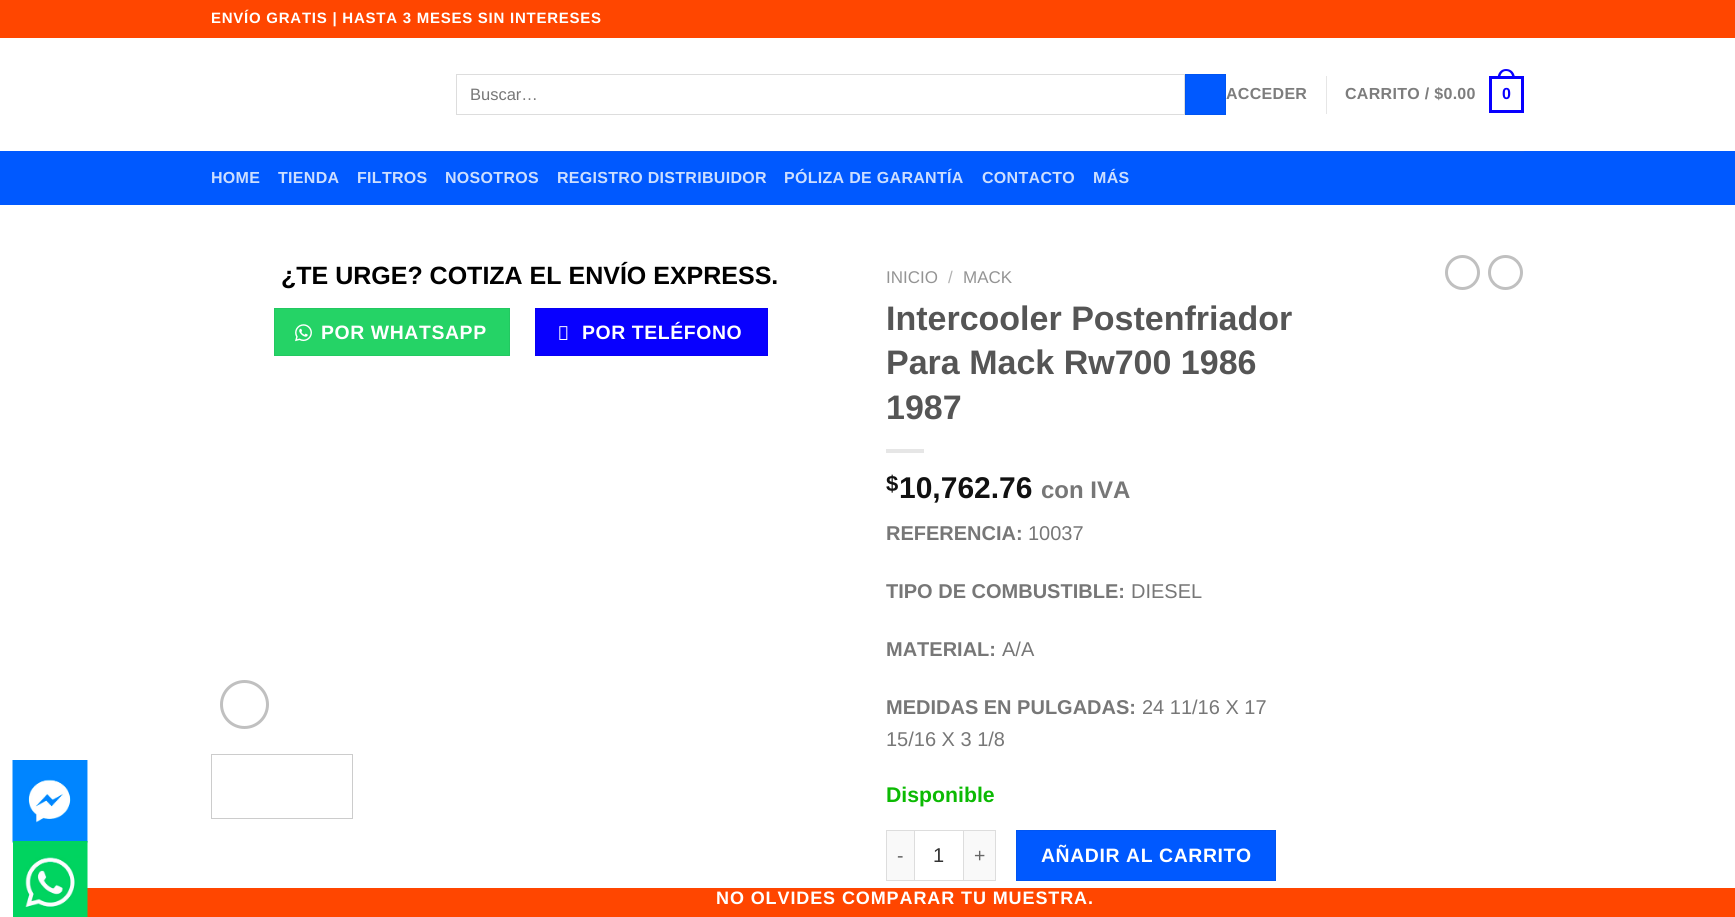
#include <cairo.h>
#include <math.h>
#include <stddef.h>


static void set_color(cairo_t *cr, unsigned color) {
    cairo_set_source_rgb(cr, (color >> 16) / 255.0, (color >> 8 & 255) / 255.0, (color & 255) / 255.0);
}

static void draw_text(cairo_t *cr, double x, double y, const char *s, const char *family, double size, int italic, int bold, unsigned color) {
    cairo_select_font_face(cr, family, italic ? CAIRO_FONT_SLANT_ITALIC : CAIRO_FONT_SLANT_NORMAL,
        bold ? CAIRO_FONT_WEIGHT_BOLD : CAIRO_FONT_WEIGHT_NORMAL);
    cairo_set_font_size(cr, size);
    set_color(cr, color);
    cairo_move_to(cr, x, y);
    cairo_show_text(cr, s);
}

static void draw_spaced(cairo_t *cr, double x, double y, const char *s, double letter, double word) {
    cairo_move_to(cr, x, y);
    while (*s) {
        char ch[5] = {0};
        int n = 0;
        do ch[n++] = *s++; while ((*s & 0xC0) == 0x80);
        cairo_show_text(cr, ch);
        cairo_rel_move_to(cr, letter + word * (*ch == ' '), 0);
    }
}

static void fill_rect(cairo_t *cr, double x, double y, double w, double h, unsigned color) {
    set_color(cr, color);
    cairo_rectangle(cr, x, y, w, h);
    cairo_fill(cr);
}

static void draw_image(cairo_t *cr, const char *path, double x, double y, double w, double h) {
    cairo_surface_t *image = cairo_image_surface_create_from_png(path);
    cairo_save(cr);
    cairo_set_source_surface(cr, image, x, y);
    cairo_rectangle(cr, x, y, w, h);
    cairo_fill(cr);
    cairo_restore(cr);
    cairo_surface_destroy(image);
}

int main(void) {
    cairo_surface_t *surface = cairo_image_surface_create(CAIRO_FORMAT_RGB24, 1735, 917);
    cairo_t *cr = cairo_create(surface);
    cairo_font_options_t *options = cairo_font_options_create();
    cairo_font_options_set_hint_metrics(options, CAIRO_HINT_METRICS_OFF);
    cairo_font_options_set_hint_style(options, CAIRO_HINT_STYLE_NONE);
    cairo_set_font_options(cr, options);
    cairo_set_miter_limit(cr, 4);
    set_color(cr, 0xFFFFFF);
    cairo_paint(cr);
    draw_image(cr, "assets/img1.png", 12, 760, 76, 83);
    fill_rect(cr, 0, 0, 1735, 38, 0xFF4600);
    cairo_select_font_face(cr, "Liberation Sans", CAIRO_FONT_SLANT_NORMAL, CAIRO_FONT_WEIGHT_BOLD);
    cairo_set_font_size(cr, 15);
    set_color(cr, 0xFFFFFF);
    draw_spaced(cr, 211, 23, "ENVÍO GRATIS | HASTA 3 MESES SIN INTERESES", 0.75, 0);
    cairo_rectangle(cr, 456.5, 74.5, 728, 40);
    set_color(cr, 0xDDDDDD);
    cairo_set_line_width(cr, 1);
    cairo_stroke(cr);
    draw_text(cr, 470, 100, "Buscar…", "Liberation Sans", 16.5, 0, 0, 0x777777);
    set_color(cr, 0x0059FF);
    cairo_rectangle(cr, 1185.5, 74.5, 40, 40);
    cairo_fill_preserve(cr);
    set_color(cr, 0x0055F2);
    cairo_stroke(cr);
    cairo_select_font_face(cr, "Liberation Sans", CAIRO_FONT_SLANT_NORMAL, CAIRO_FONT_WEIGHT_BOLD);
    cairo_set_font_size(cr, 16);
    set_color(cr, 0x7D7D7D);
    draw_spaced(cr, 1226, 99, "ACCEDER", 0.3, 0);
    fill_rect(cr, 1326, 76, 1, 38, 0xE6E6E6);
    set_color(cr, 0x7D7D7D);
    draw_spaced(cr, 1345, 99, "CARRITO / $0.00", 0.3, 0);
    cairo_rectangle(cr, 1490.5, 77.5, 32, 34);
    set_color(cr, 0x0800FF);
    cairo_set_line_width(cr, 3);
    cairo_stroke(cr);
    cairo_set_fill_rule(cr, CAIRO_FILL_RULE_EVEN_ODD);
    cairo_new_path(cr);
    cairo_move_to(cr, 1506, 69);
    cairo_curve_to(cr, 1512, 69, 1515, 73.5, 1515, 79);
    cairo_line_to(cr, 1497.5, 79);
    cairo_curve_to(cr, 1497.5, 73.5, 1500.5, 69, 1506, 69);
    cairo_close_path(cr);
    cairo_move_to(cr, 1506, 71);
    cairo_curve_to(cr, 1510.5, 71, 1512.5, 75, 1512.5, 79);
    cairo_line_to(cr, 1500, 79);
    cairo_curve_to(cr, 1500, 75, 1502, 71, 1506, 71);
    cairo_close_path(cr);
    cairo_fill(cr);
    draw_spaced(cr, 1502, 99, "0", 0.3, 0);
    fill_rect(cr, 0, 151, 1735, 54, 0x0059FF);
    fill_rect(cr, 211, 151, 1313, 1, 0x0C5CF1);
    set_color(cr, 0xCCDEFF);
    draw_spaced(cr, 211, 183, "HOME", 0.3, 0);
    draw_spaced(cr, 278, 183, "TIENDA", 0.3, 0);
    draw_spaced(cr, 357, 183, "FILTROS", 0.3, 0);
    draw_spaced(cr, 445, 183, "NOSOTROS", 0.3, 0);
    draw_spaced(cr, 557, 183, "REGISTRO DISTRIBUIDOR", 0.3, 0);
    draw_spaced(cr, 784, 183, "PÓLIZA DE GARANTÍA", 0.3, 0);
    draw_spaced(cr, 982, 183, "CONTACTO", 0.3, 0);
    draw_spaced(cr, 1093, 183, "MÁS", 0.3, 0);
    draw_text(cr, 281, 284, "¿TE URGE? COTIZA EL ENVÍO EXPRESS.", "Liberation Sans", 25, 0, 1, 0x000000);
    set_color(cr, 0x25D366);
    cairo_rectangle(cr, 274.5, 308.5, 235, 47);
    cairo_fill_preserve(cr);
    set_color(cr, 0x23C861);
    cairo_set_line_width(cr, 1);
    cairo_stroke(cr);
    draw_image(cr, "assets/img2.png", 295, 324, 17, 18);
    cairo_set_font_size(cr, 19.4);
    set_color(cr, 0xFFFFFF);
    draw_spaced(cr, 321, 339, "POR WHATSAPP", 0.6, 0);
    set_color(cr, 0x0800FF);
    cairo_rectangle(cr, 535.5, 308.5, 232, 47);
    cairo_fill_preserve(cr);
    set_color(cr, 0x0800F2);
    cairo_stroke(cr);
    draw_image(cr, "assets/img3.png", 559, 326, 9, 14);
    set_color(cr, 0xFFFFFF);
    draw_spaced(cr, 582, 339, "POR TELÉFONO", 0.6, 0);
    cairo_new_path(cr);
    cairo_arc(cr, 244.5, 704.5, 23, 0, 2 * M_PI);
    set_color(cr, 0xC0C0C0);
    cairo_set_line_width(cr, 3);
    cairo_stroke(cr);
    cairo_rectangle(cr, 211.5, 754.5, 141, 64);
    set_color(cr, 0xCCCCCC);
    cairo_set_line_width(cr, 1);
    cairo_stroke(cr);
    draw_text(cr, 886, 283, "INICIO", "Liberation Sans", 17, 0, 0, 0x949494);
    draw_text(cr, 948, 283, "/", "Liberation Sans", 17, 0, 0, 0xB2B2B2);
    draw_text(cr, 963, 283, "MACK", "Liberation Sans", 17, 0, 0, 0x949494);
    draw_text(cr, 886, 330, "Intercooler Postenfriador", "Liberation Sans", 34, 0, 1, 0x555555);
    draw_text(cr, 886, 374, "Para Mack Rw700 1986", "Liberation Sans", 34, 0, 1, 0x555555);
    draw_text(cr, 886, 419, "1987", "Liberation Sans", 34, 0, 1, 0x555555);
    fill_rect(cr, 886, 449, 38, 4, 0xE6E6E6);
    draw_text(cr, 886, 491, "$", "Liberation Sans", 22, 0, 1, 0x111111);
    draw_text(cr, 899, 498, "10,762.76", "Liberation Sans", 30, 0, 1, 0x111111);
    draw_text(cr, 1041, 498, "con IVA", "Liberation Sans", 24, 0, 1, 0x777777);
    draw_text(cr, 886, 540, "REFERENCIA:", "Liberation Sans", 20, 0, 1, 0x777777);
    draw_text(cr, 1028, 540, "10037", "Liberation Sans", 20, 0, 0, 0x777777);
    draw_text(cr, 886, 598, "TIPO DE COMBUSTIBLE:", "Liberation Sans", 20, 0, 1, 0x777777);
    draw_text(cr, 1131, 598, "DIESEL", "Liberation Sans", 20, 0, 0, 0x777777);
    draw_text(cr, 886, 656, "MATERIAL:", "Liberation Sans", 20, 0, 1, 0x777777);
    draw_text(cr, 1002, 656, "A/A", "Liberation Sans", 20, 0, 0, 0x777777);
    draw_text(cr, 886, 714, "MEDIDAS EN PULGADAS:", "Liberation Sans", 20, 0, 1, 0x777777);
    draw_text(cr, 1142, 714, "24 11/16 X 17", "Liberation Sans", 20, 0, 0, 0x777777);
    draw_text(cr, 886, 746, "15/16 X 3 1/8", "Liberation Sans", 20, 0, 0, 0x777777);
    draw_text(cr, 886, 802, "Disponible", "Liberation Sans", 21.25, 0, 1, 0x0CBA03);
    fill_rect(cr, 887, 831, 27, 49, 0xF9F9F9);
    fill_rect(cr, 886, 830, 28, 1, 0xDDDDDD);
    fill_rect(cr, 886, 880, 28, 1, 0xDDDDDD);
    fill_rect(cr, 886, 830, 1, 51, 0xDDDDDD);
    cairo_select_font_face(cr, "Liberation Sans", CAIRO_FONT_SLANT_NORMAL, CAIRO_FONT_WEIGHT_NORMAL);
    cairo_set_font_size(cr, 19.4);
    set_color(cr, 0x666666);
    draw_spaced(cr, 897, 862, "-", 0.6, 0);
    cairo_rectangle(cr, 914.5, 830.5, 49, 50);
    set_color(cr, 0xDDDDDD);
    cairo_stroke(cr);
    draw_text(cr, 933, 862, "1", "Liberation Sans", 20, 0, 0, 0x333333);
    fill_rect(cr, 964, 831, 31, 49, 0xF9F9F9);
    fill_rect(cr, 964, 830, 32, 1, 0xDDDDDD);
    fill_rect(cr, 995, 830, 1, 51, 0xDDDDDD);
    fill_rect(cr, 964, 880, 32, 1, 0xDDDDDD);
    cairo_set_font_size(cr, 19.4);
    set_color(cr, 0x666666);
    draw_spaced(cr, 974, 862, "+", 0.6, 0);
    set_color(cr, 0x0059FF);
    cairo_rectangle(cr, 1016.5, 830.5, 259, 50);
    cairo_fill_preserve(cr);
    set_color(cr, 0x0055F2);
    cairo_stroke(cr);
    cairo_select_font_face(cr, "Liberation Sans", CAIRO_FONT_SLANT_NORMAL, CAIRO_FONT_WEIGHT_BOLD);
    set_color(cr, 0xFFFFFF);
    draw_spaced(cr, 1041, 862, "AÑADIR AL CARRITO", 0.6, 0);
    cairo_new_path(cr);
    cairo_arc(cr, 1462.5, 272.5, 16, 0, 2 * M_PI);
    set_color(cr, 0xC0C0C0);
    cairo_set_line_width(cr, 3);
    cairo_stroke(cr);
    cairo_arc(cr, 1505.5, 272.5, 16, 0, 2 * M_PI);
    cairo_stroke(cr);
    fill_rect(cr, 87, 888, 1648, 29, 0xFF4600);
    cairo_set_font_size(cr, 18);
    set_color(cr, 0xFFFFFF);
    draw_spaced(cr, 716, 904, "NO OLVIDES COMPARAR TU MUESTRA.", 0.9, 0);
    draw_image(cr, "assets/img4.png", 13, 841, 75, 76);
    cairo_surface_write_to_png(surface, "output.png");
    cairo_font_options_destroy(options);
    cairo_destroy(cr);
    cairo_surface_destroy(surface);
    return 0;
}
